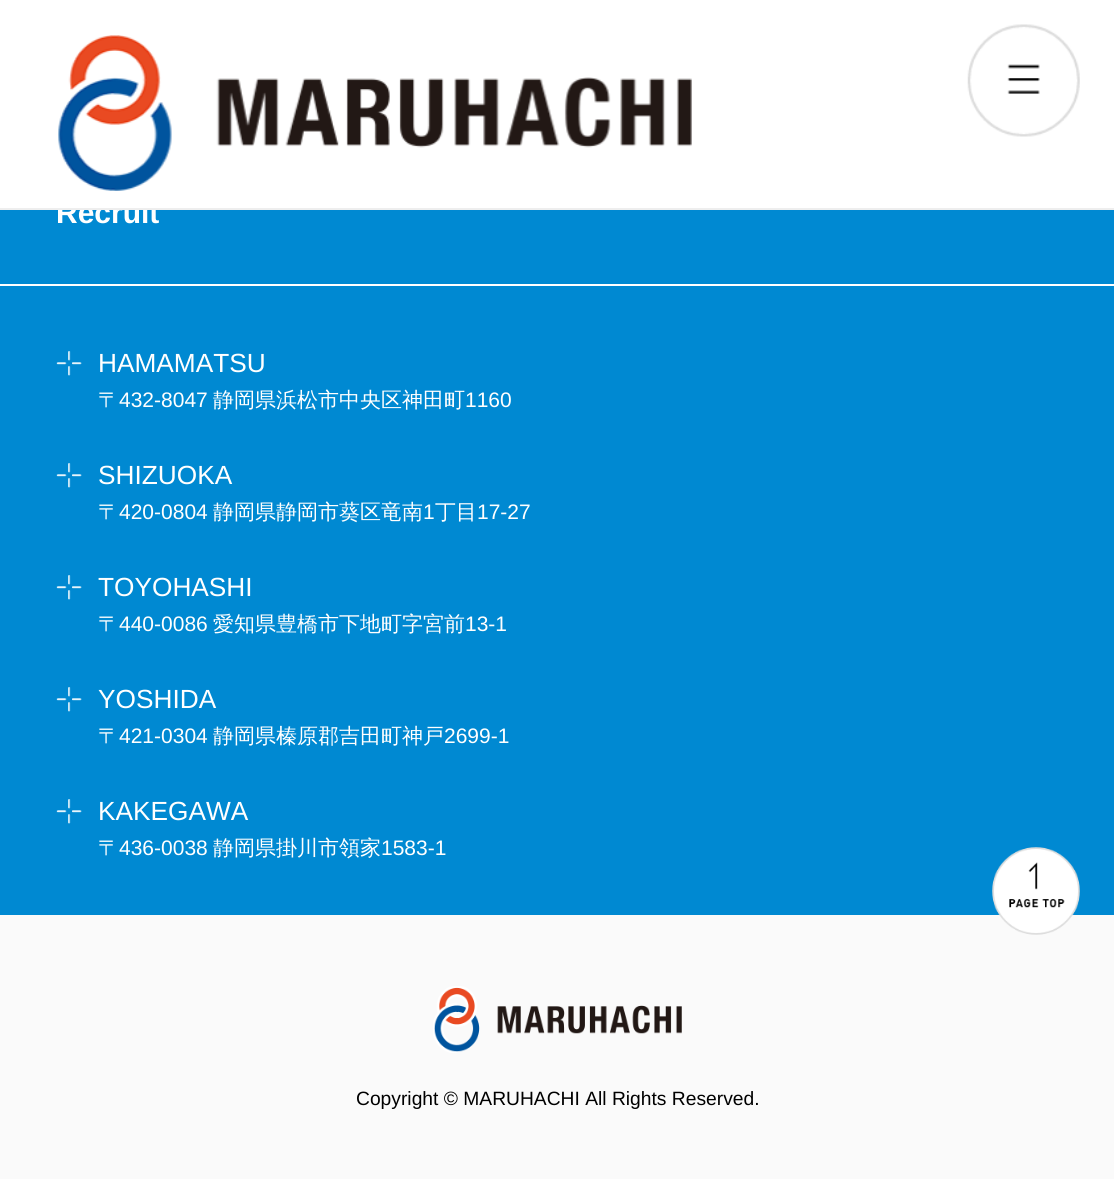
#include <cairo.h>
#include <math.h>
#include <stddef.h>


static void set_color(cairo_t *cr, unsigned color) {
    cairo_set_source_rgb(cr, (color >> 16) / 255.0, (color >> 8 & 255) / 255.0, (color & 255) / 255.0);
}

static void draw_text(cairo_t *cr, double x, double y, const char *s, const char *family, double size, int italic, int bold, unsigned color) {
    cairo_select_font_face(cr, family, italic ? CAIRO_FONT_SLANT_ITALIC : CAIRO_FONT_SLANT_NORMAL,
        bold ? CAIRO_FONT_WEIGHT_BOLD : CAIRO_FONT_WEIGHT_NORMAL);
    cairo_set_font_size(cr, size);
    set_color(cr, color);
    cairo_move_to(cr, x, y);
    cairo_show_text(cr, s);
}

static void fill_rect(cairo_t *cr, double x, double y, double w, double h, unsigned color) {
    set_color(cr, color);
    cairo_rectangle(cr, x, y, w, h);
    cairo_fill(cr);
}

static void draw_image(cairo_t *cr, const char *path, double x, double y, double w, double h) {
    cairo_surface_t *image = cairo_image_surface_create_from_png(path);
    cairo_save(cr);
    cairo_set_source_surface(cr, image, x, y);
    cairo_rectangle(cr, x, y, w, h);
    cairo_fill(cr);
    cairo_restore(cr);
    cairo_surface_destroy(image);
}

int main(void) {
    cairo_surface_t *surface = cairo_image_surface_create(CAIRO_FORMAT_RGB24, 1114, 1179);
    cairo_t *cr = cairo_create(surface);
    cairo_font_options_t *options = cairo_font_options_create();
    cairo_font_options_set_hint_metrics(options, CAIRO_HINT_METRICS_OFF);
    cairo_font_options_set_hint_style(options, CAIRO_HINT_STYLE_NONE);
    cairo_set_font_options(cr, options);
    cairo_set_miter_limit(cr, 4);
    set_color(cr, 0xFAFAFA);
    cairo_paint(cr);
    fill_rect(cr, 0, 0, 1114, 208, 0xFFFFFF);
    fill_rect(cr, 0, 210, 1114, 705, 0x0089D2);
    draw_text(cr, 56, 223, "Recruit", "Liberation Sans", 30, 0, 1, 0xFFFFFF);
    fill_rect(cr, 0, 208, 1114, 2, 0xEEEEEE);
    draw_image(cr, "assets/img1.png", 58, 35, 634, 156);
    draw_image(cr, "assets/img2.png", 967, 24, 113, 113);
    fill_rect(cr, 0, 284, 1114, 2, 0xFFFFFF);
    draw_image(cr, "assets/img3.png", 56, 351, 26, 25);
    draw_text(cr, 98, 372, "HAMAMATSU", "Liberation Sans", 26.25, 0, 0, 0xFFFFFF);
    draw_text(cr, 98, 407, "〒", "WenQuanYi Zen Hei Medium", 21, 0, 0, 0xFFFFFF);
    draw_text(cr, 119, 407, "432-8047", "Liberation Sans", 21, 0, 0, 0xFFFFFF);
    draw_text(cr, 213, 407, "静岡県浜松市中央区神田町", "WenQuanYi Zen Hei Medium", 21, 0, 0, 0xFFFFFF);
    draw_text(cr, 465, 407, "1160", "Liberation Sans", 21, 0, 0, 0xFFFFFF);
    draw_image(cr, "assets/img3.png", 56, 463, 26, 25);
    draw_text(cr, 98, 484, "SHIZUOKA", "Liberation Sans", 26.25, 0, 0, 0xFFFFFF);
    draw_text(cr, 98, 519, "〒", "WenQuanYi Zen Hei Medium", 21, 0, 0, 0xFFFFFF);
    draw_text(cr, 119, 519, "420-0804", "Liberation Sans", 21, 0, 0, 0xFFFFFF);
    draw_text(cr, 213, 519, "静岡県静岡市葵区竜南", "WenQuanYi Zen Hei Medium", 21, 0, 0, 0xFFFFFF);
    draw_text(cr, 423, 519, "1", "Liberation Sans", 21, 0, 0, 0xFFFFFF);
    draw_text(cr, 435, 519, "丁目", "WenQuanYi Zen Hei Medium", 21, 0, 0, 0xFFFFFF);
    draw_text(cr, 477, 519, "17-27", "Liberation Sans", 21, 0, 0, 0xFFFFFF);
    draw_image(cr, "assets/img3.png", 56, 575, 26, 25);
    draw_text(cr, 98, 596, "TOYOHASHI", "Liberation Sans", 26.25, 0, 0, 0xFFFFFF);
    draw_text(cr, 98, 631, "〒", "WenQuanYi Zen Hei Medium", 21, 0, 0, 0xFFFFFF);
    draw_text(cr, 119, 631, "440-0086", "Liberation Sans", 21, 0, 0, 0xFFFFFF);
    draw_text(cr, 213, 631, "愛知県豊橋市下地町字宮前", "WenQuanYi Zen Hei Medium", 21, 0, 0, 0xFFFFFF);
    draw_text(cr, 465, 631, "13-1", "Liberation Sans", 21, 0, 0, 0xFFFFFF);
    draw_image(cr, "assets/img3.png", 56, 687, 26, 25);
    draw_text(cr, 98, 708, "YOSHIDA", "Liberation Sans", 26.25, 0, 0, 0xFFFFFF);
    draw_text(cr, 98, 743, "〒", "WenQuanYi Zen Hei Medium", 21, 0, 0, 0xFFFFFF);
    draw_text(cr, 119, 743, "421-0304", "Liberation Sans", 21, 0, 0, 0xFFFFFF);
    draw_text(cr, 213, 743, "静岡県榛原郡吉田町神戸", "WenQuanYi Zen Hei Medium", 21, 0, 0, 0xFFFFFF);
    draw_text(cr, 444, 743, "2699-1", "Liberation Sans", 21, 0, 0, 0xFFFFFF);
    draw_image(cr, "assets/img3.png", 56, 799, 26, 25);
    draw_text(cr, 98, 820, "KAKEGAWA", "Liberation Sans", 26.25, 0, 0, 0xFFFFFF);
    draw_text(cr, 98, 855, "〒", "WenQuanYi Zen Hei Medium", 21, 0, 0, 0xFFFFFF);
    draw_text(cr, 119, 855, "436-0038", "Liberation Sans", 21, 0, 0, 0xFFFFFF);
    draw_text(cr, 213, 855, "静岡県掛川市領家", "WenQuanYi Zen Hei Medium", 21, 0, 0, 0xFFFFFF);
    draw_text(cr, 381, 855, "1583-1", "Liberation Sans", 21, 0, 0, 0xFFFFFF);
    draw_image(cr, "assets/img4.png", 992, 847, 88, 88);
    draw_image(cr, "assets/img5.png", 433, 986, 249, 67);
    draw_text(cr, 356, 1105, "Copyright © MARUHACHI All Rights Reserved.", "Liberation Sans", 19.25, 0, 0, 0x000000);
    cairo_surface_write_to_png(surface, "output.png");
    cairo_font_options_destroy(options);
    cairo_destroy(cr);
    cairo_surface_destroy(surface);
    return 0;
}
